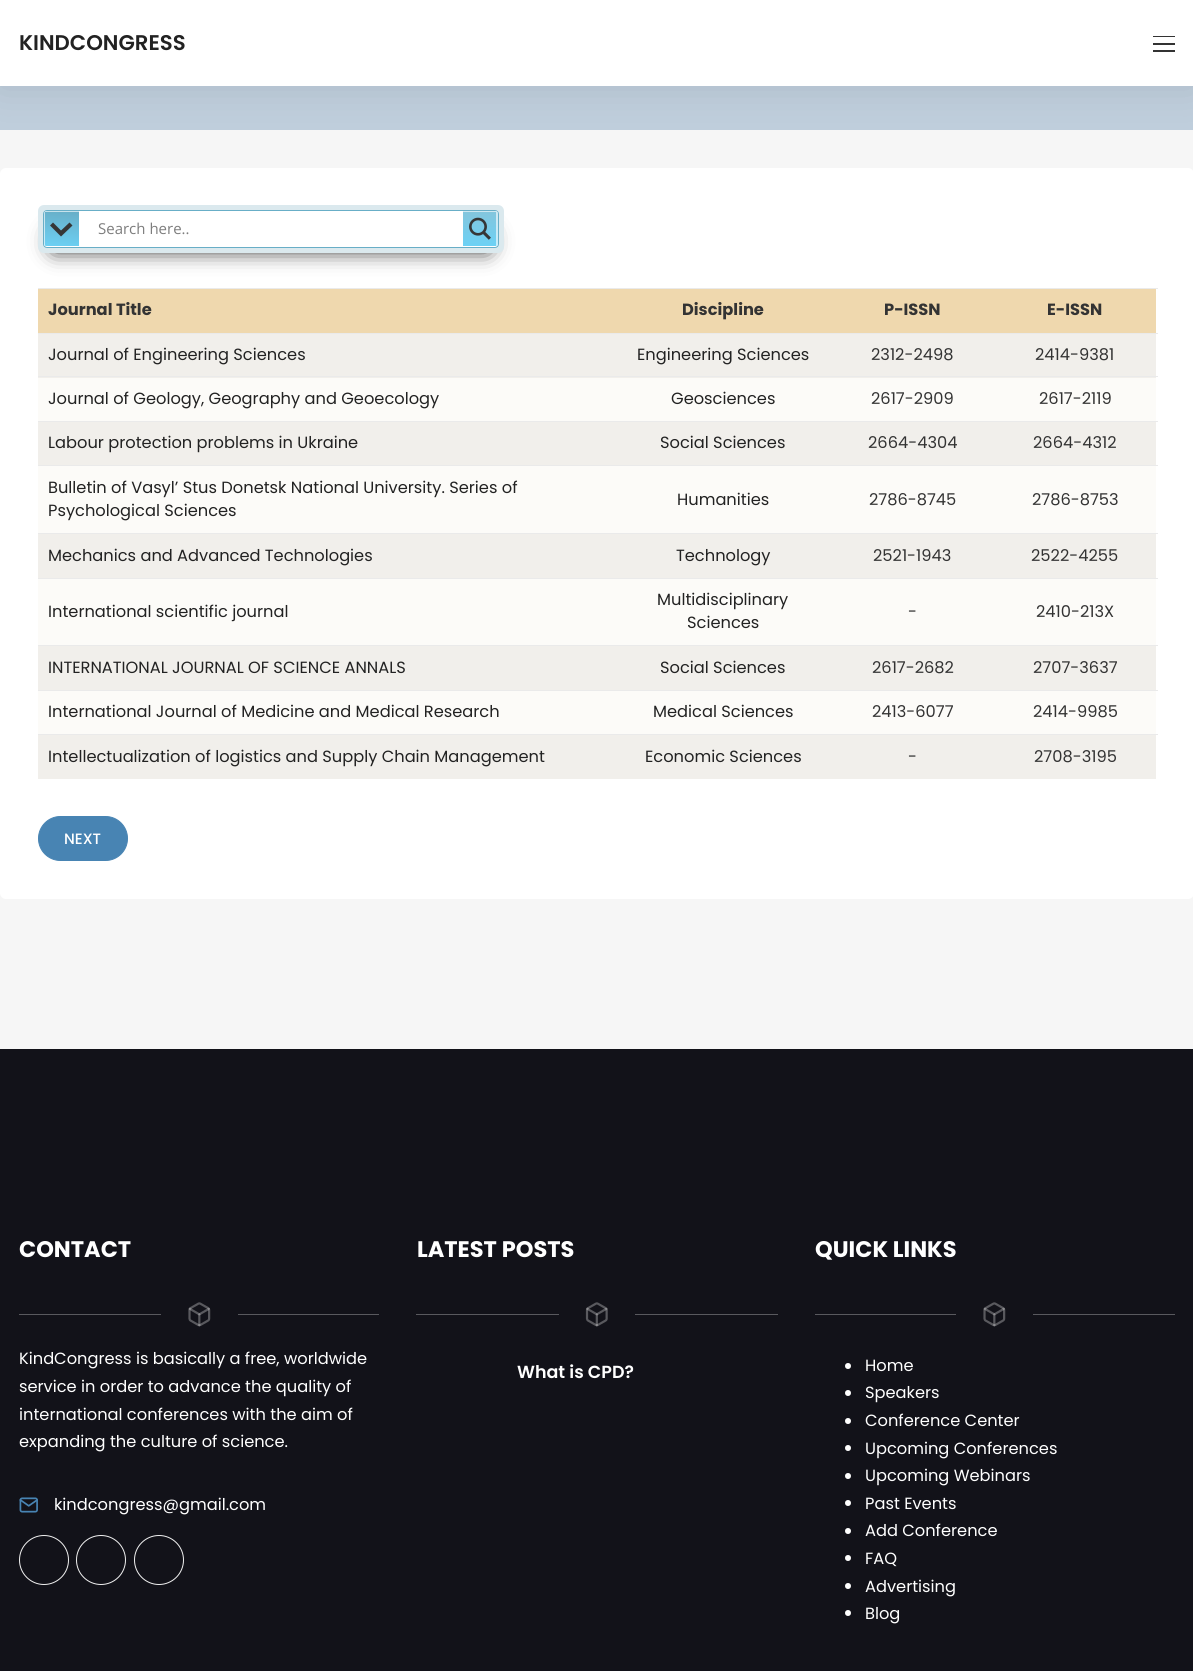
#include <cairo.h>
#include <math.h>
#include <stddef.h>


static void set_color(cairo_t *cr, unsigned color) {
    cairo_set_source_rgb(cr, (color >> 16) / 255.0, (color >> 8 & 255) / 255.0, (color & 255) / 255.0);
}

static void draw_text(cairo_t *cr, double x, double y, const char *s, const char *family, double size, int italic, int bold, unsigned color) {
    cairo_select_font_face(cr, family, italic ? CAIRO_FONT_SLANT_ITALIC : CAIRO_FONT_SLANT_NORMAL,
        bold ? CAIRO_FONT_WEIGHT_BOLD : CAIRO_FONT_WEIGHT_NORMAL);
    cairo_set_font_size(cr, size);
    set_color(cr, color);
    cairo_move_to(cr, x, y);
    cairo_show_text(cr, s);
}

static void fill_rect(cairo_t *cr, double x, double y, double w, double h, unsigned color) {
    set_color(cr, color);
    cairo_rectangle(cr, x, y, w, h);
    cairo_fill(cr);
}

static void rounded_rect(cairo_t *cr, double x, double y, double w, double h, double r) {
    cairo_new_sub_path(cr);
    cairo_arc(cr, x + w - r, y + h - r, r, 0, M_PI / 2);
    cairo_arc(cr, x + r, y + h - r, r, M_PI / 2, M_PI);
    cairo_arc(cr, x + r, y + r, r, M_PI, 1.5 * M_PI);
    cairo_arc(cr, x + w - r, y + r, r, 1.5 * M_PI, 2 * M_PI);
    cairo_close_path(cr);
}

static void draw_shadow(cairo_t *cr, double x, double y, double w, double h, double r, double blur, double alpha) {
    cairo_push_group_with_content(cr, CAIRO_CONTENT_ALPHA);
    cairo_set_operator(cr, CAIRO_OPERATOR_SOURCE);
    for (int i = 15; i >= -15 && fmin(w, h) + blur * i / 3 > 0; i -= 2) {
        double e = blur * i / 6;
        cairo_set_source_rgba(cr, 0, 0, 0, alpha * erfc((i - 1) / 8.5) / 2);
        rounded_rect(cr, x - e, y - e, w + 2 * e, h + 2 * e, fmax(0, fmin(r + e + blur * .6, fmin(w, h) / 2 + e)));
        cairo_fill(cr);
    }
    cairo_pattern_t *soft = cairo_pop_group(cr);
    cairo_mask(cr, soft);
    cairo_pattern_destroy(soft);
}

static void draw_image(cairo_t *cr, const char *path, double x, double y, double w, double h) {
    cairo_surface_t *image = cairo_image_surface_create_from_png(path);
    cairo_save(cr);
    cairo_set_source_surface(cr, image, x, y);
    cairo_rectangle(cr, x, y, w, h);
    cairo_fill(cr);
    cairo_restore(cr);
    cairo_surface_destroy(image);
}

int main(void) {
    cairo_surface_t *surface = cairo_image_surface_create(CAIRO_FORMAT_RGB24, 1193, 1671);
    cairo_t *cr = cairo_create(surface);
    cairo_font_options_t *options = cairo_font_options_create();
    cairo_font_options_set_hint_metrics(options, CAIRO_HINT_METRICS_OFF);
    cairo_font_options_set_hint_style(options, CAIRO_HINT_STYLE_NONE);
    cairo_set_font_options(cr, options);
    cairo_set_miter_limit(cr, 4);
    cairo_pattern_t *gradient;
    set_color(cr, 0xF6F6F6);
    cairo_paint(cr);
    fill_rect(cr, 0, 86, 1193, 44, 0xBFCEDC);
    set_color(cr, 0x000000);
    draw_shadow(cr, 0, 1, 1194, 87, 0, 19, 0.1);
    fill_rect(cr, 0, 0, 1193, 86, 0xFFFFFF);
    draw_text(cr, 19, 50, "KINDCONGRESS", "Poppins SemiBold", 21.25, 0, 0, 0x222222);
    fill_rect(cr, 1153, 36, 22, 1, 0x333333);
    fill_rect(cr, 1153, 43, 22, 2, 0x333333);
    fill_rect(cr, 1153, 50, 22, 2, 0x333333);
    set_color(cr, 0xFFFFFF);
    rounded_rect(cr, 0, 168, 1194, 731, 6);
    cairo_fill(cr);
    set_color(cr, 0x000000);
    draw_shadow(cr, 54, 234, 434, 15, 0, 11, 1);
    set_color(cr, 0xDBE9EE);
    rounded_rect(cr, 38, 205, 466, 48, 6);
    cairo_fill(cr);
    set_color(cr, 0xFFFFFF);
    rounded_rect(cr, 43.5, 210.5, 455, 37, 3.5);
    cairo_fill_preserve(cr);
    set_color(cr, 0x68AEC7);
    cairo_set_line_width(cr, 1);
    cairo_stroke(cr);
    gradient = cairo_pattern_create_linear(63, 210, 60, 248);
    cairo_pattern_add_color_stop_rgba(gradient, 0, 0.408, 0.682, 0.78, 1);
    cairo_pattern_add_color_stop_rgba(gradient, 1, 0.424, 0.82, 0.961, 1);
    cairo_set_source(cr, gradient);
    cairo_pattern_destroy(gradient);
    cairo_new_path(cr);
    cairo_move_to(cr, 46.5, 211);
    cairo_line_to(cr, 79, 211);
    cairo_line_to(cr, 79, 246);
    cairo_line_to(cr, 46.5, 246);
    cairo_curve_to(cr, 45, 246, 44, 245, 44, 243.5);
    cairo_line_to(cr, 44, 213.5);
    cairo_curve_to(cr, 44, 212, 45, 211, 46.5, 211);
    cairo_close_path(cr);
    cairo_fill(cr);
    cairo_save(cr);
    cairo_rectangle(cr, 44, 211, 35, 35);
    cairo_clip(cr);
    cairo_set_source_rgba(cr, 1, 1, 1, 0.63);
    cairo_new_path(cr);
    cairo_move_to(cr, 45, 212);
    cairo_line_to(cr, 45, 246);
    cairo_curve_to(cr, 44, 245, 44, 244, 44, 244);
    cairo_line_to(cr, 44, 214);
    cairo_curve_to(cr, 44, 212, 45, 211, 46, 211);
    cairo_line_to(cr, 202, 211);
    cairo_line_to(cr, 202, 246);
    cairo_line_to(cr, 80, 246);
    cairo_line_to(cr, 80, 212);
    cairo_close_path(cr);
    cairo_fill(cr);
    cairo_restore(cr);
    set_color(cr, 0x363636);
    cairo_new_path(cr);
    cairo_move_to(cr, 69.5, 222.5);
    cairo_line_to(cr, 72.5, 225.5);
    cairo_line_to(cr, 61, 236.5);
    cairo_line_to(cr, 50, 225.5);
    cairo_line_to(cr, 53, 222.5);
    cairo_line_to(cr, 61, 230.5);
    cairo_close_path(cr);
    cairo_fill(cr);
    draw_text(cr, 98, 234, "Search here..", "Open Sans", 15, 0, 0, 0x7D7D7D);
    gradient = cairo_pattern_create_linear(480, 211, 480, 246);
    cairo_pattern_add_color_stop_rgba(gradient, 0, 0.518, 0.773, 0.863, 1);
    cairo_pattern_add_color_stop_rgba(gradient, 1, 0.424, 0.82, 0.961, 1);
    cairo_set_source(cr, gradient);
    cairo_pattern_destroy(gradient);
    cairo_new_path(cr);
    cairo_move_to(cr, 463, 211);
    cairo_line_to(cr, 495.5, 211);
    cairo_curve_to(cr, 497, 211, 498, 212, 498, 213.5);
    cairo_line_to(cr, 498, 243.5);
    cairo_curve_to(cr, 498, 245, 497, 246, 495.5, 246);
    cairo_line_to(cr, 463, 246);
    cairo_close_path(cr);
    cairo_fill(cr);
    cairo_save(cr);
    cairo_rectangle(cr, 463, 211, 35, 35);
    cairo_clip(cr);
    cairo_set_source_rgba(cr, 1, 1, 1, 0.61);
    cairo_new_path(cr);
    cairo_move_to(cr, 461, 212);
    cairo_line_to(cr, 461, 246);
    cairo_line_to(cr, 339, 246);
    cairo_line_to(cr, 339, 211);
    cairo_line_to(cr, 496, 211);
    cairo_curve_to(cr, 497, 211, 498, 212, 498, 214);
    cairo_line_to(cr, 498, 244);
    cairo_curve_to(cr, 498, 245, 497, 246, 496, 246);
    cairo_line_to(cr, 496, 212);
    cairo_close_path(cr);
    cairo_fill(cr);
    cairo_restore(cr);
    draw_image(cr, "assets/img1.png", 469, 217, 22, 23);
    fill_rect(cr, 38, 289, 1118, 44, 0xEFD8AE);
    draw_text(cr, 48, 315, "Journal Title", "Poppins", 16.25, 0, 1, 0x333333);
    draw_text(cr, 682, 315, "Discipline", "Poppins", 16.25, 0, 1, 0x333333);
    draw_text(cr, 884, 315, "P-ISSN", "Poppins", 16.25, 0, 1, 0x333333);
    fill_rect(cr, 38, 288, 1120, 1, 0xEAEAEA);
    draw_text(cr, 1047, 315, "E-ISSN", "Poppins", 16.25, 0, 1, 0x333333);
    fill_rect(cr, 38, 334, 1118, 44, 0xF1EFEB);
    draw_text(cr, 48, 360, "Journal of Engineering Sciences", "Poppins", 16.25, 0, 0, 0x222222);
    draw_text(cr, 637, 360, "Engineering Sciences", "Poppins", 16.25, 0, 0, 0x222222);
    draw_text(cr, 871, 360, "2312-2498", "Poppins", 16.25, 0, 0, 0x333333);
    fill_rect(cr, 38, 333, 1120, 1, 0xEAEAEA);
    draw_text(cr, 1035, 360, "2414-9381", "Poppins", 16.25, 0, 0, 0x333333);
    fill_rect(cr, 38, 378, 1118, 43, 0xFCFBF8);
    draw_text(cr, 48, 404, "Journal of Geology, Geography and Geoecology", "Poppins", 16.25, 0, 0, 0x222222);
    draw_text(cr, 671, 404, "Geosciences", "Poppins", 16.25, 0, 0, 0x222222);
    draw_text(cr, 871, 404, "2617-2909", "Poppins", 16.25, 0, 0, 0x333333);
    fill_rect(cr, 38, 376, 1120, 1, 0xEAEAEA);
    draw_text(cr, 1039, 404, "2617-2119", "Poppins", 16.25, 0, 0, 0x333333);
    fill_rect(cr, 38, 422, 1118, 43, 0xF1EFEB);
    draw_text(cr, 48, 448, "Labour protection problems in Ukraine", "Poppins", 16.25, 0, 0, 0x222222);
    draw_text(cr, 660, 448, "Social Sciences", "Poppins", 16.25, 0, 0, 0x222222);
    draw_text(cr, 868, 448, "2664-4304", "Poppins", 16.25, 0, 0, 0x333333);
    fill_rect(cr, 38, 421, 1120, 1, 0xEAEAEA);
    draw_text(cr, 1033, 448, "2664-4312", "Poppins", 16.25, 0, 0, 0x333333);
    fill_rect(cr, 38, 466, 1118, 67, 0xFCFBF8);
    draw_text(cr, 48, 493, "Bulletin of Vasyl’ Stus Donetsk National University. Series of", "Poppins", 16.25, 0, 0, 0x222222);
    draw_text(cr, 48, 516, "Psychological Sciences", "Poppins", 16.25, 0, 0, 0x222222);
    draw_text(cr, 677, 505, "Humanities", "Poppins", 16.25, 0, 0, 0x222222);
    draw_text(cr, 869, 505, "2786-8745", "Poppins", 16.25, 0, 0, 0x333333);
    fill_rect(cr, 38, 465, 1120, 1, 0xEAEAEA);
    draw_text(cr, 1032, 505, "2786-8753", "Poppins", 16.25, 0, 0, 0x333333);
    fill_rect(cr, 38, 534, 1118, 44, 0xF1EFEB);
    draw_text(cr, 48, 561, "Mechanics and Advanced Technologies", "Poppins", 16.25, 0, 0, 0x222222);
    draw_text(cr, 676, 561, "Technology", "Poppins", 16.25, 0, 0, 0x222222);
    draw_text(cr, 873, 561, "2521-1943", "Poppins", 16.25, 0, 0, 0x333333);
    fill_rect(cr, 38, 533, 1120, 1, 0xEAEAEA);
    draw_text(cr, 1031, 561, "2522-4255", "Poppins", 16.25, 0, 0, 0x333333);
    fill_rect(cr, 38, 579, 1118, 66, 0xFCFBF8);
    draw_text(cr, 48, 617, "International scientific journal", "Poppins", 16.25, 0, 0, 0x222222);
    draw_text(cr, 657, 605, "Multidisciplinary", "Poppins", 16.25, 0, 0, 0x222222);
    draw_text(cr, 687, 628, "Sciences", "Poppins", 16.25, 0, 0, 0x222222);
    draw_text(cr, 908, 617, "-", "Poppins", 16.25, 0, 0, 0x333333);
    fill_rect(cr, 38, 578, 1120, 1, 0xEAEAEA);
    draw_text(cr, 1036, 617, "2410-213X", "Poppins", 16.25, 0, 0, 0x333333);
    fill_rect(cr, 38, 646, 1118, 44, 0xF1EFEB);
    draw_text(cr, 48, 673, "INTERNATIONAL JOURNAL OF SCIENCE ANNALS", "Poppins", 16.25, 0, 0, 0x222222);
    draw_text(cr, 660, 673, "Social Sciences", "Poppins", 16.25, 0, 0, 0x222222);
    draw_text(cr, 872, 673, "2617-2682", "Poppins", 16.25, 0, 0, 0x333333);
    fill_rect(cr, 38, 645, 1120, 1, 0xEAEAEA);
    draw_text(cr, 1033, 673, "2707-3637", "Poppins", 16.25, 0, 0, 0x333333);
    fill_rect(cr, 38, 691, 1118, 43, 0xFCFBF8);
    draw_text(cr, 48, 717, "International Journal of Medicine and Medical Research", "Poppins", 16.25, 0, 0, 0x222222);
    draw_text(cr, 653, 717, "Medical Sciences", "Poppins", 16.25, 0, 0, 0x222222);
    draw_text(cr, 872, 717, "2413-6077", "Poppins", 16.25, 0, 0, 0x333333);
    fill_rect(cr, 38, 690, 1120, 1, 0xEAEAEA);
    draw_text(cr, 1033, 717, "2414-9985", "Poppins", 16.25, 0, 0, 0x333333);
    fill_rect(cr, 38, 735, 1118, 44, 0xF1EFEB);
    draw_text(cr, 48, 762, "Intellectualization of logistics and Supply Chain Management", "Poppins", 16.25, 0, 0, 0x222222);
    draw_text(cr, 645, 762, "Economic Sciences", "Poppins", 16.25, 0, 0, 0x222222);
    draw_text(cr, 908, 762, "-", "Poppins", 16.25, 0, 0, 0x333333);
    fill_rect(cr, 38, 734, 1120, 1, 0xEAEAEA);
    draw_text(cr, 1034, 762, "2708-3195", "Poppins", 16.25, 0, 0, 0x333333);
    set_color(cr, 0x4884B3);
    rounded_rect(cr, 38.5, 816.5, 89, 44, 22);
    cairo_fill_preserve(cr);
    cairo_stroke(cr);
    draw_text(cr, 64, 844, "NEXT", "Poppins Medium", 15, 0, 0, 0xFFFFFF);
    fill_rect(cr, 0, 1049, 1193, 622, 0x121219);
    draw_text(cr, 19, 1257, "CONTACT", "Poppins", 22.5, 0, 1, 0xFFFFFF);
    fill_rect(cr, 19, 1314, 142, 1, 0x59595E);
    draw_image(cr, "assets/img2.png", 188, 1302, 23, 25);
    fill_rect(cr, 238, 1314, 141, 1, 0x59595E);
    draw_text(cr, 19, 1364, "KindCongress is basically a free, worldwide", "Poppins", 16.25, 0, 0, 0xFFFFFF);
    draw_text(cr, 19, 1392, "service in order to advance the quality of", "Poppins", 16.25, 0, 0, 0xFFFFFF);
    draw_text(cr, 19, 1420, "international conferences with the aim of", "Poppins", 16.25, 0, 0, 0xFFFFFF);
    draw_text(cr, 19, 1447, "expanding the culture of science.", "Poppins", 16.25, 0, 0, 0xFFFFFF);
    draw_image(cr, "assets/img3.png", 19, 1497, 19, 16);
    draw_text(cr, 54, 1510, "kindcongress@gmail.com", "Poppins", 16.25, 0, 0, 0xFFFFFF);
    cairo_new_path(cr);
    cairo_arc(cr, 44, 1560, 24.5, 0, 2 * M_PI);
    set_color(cr, 0xEFEFEF);
    cairo_stroke(cr);
    cairo_arc(cr, 101, 1560, 24.5, 0, 2 * M_PI);
    cairo_stroke(cr);
    cairo_arc(cr, 159, 1560, 24.5, 0, 2 * M_PI);
    cairo_stroke(cr);
    draw_text(cr, 417, 1257, "LATEST POSTS", "Poppins", 22.5, 0, 1, 0xFFFFFF);
    fill_rect(cr, 416, 1314, 143, 1, 0x59595E);
    draw_image(cr, "assets/img4.png", 585, 1302, 23, 25);
    fill_rect(cr, 635, 1314, 143, 1, 0x59595E);
    draw_text(cr, 517, 1378, "What is CPD?", "Poppins SemiBold", 17.5, 0, 0, 0xFFFFFF);
    draw_text(cr, 815, 1257, "QUICK LINKS", "Poppins", 22.5, 0, 1, 0xFFFFFF);
    fill_rect(cr, 815, 1314, 141, 1, 0x59595E);
    draw_image(cr, "assets/img2.png", 983, 1302, 23, 25);
    fill_rect(cr, 1033, 1314, 142, 1, 0x59595E);
    set_color(cr, 0xFFFFFF);
    cairo_arc(cr, 848, 1366, 3, 0, 2 * M_PI);
    cairo_fill(cr);
    draw_text(cr, 865, 1371, "Home", "Poppins", 16.25, 0, 0, 0xFFFFFF);
    cairo_new_path(cr);
    cairo_arc(cr, 848, 1393, 3, 0, 2 * M_PI);
    cairo_fill(cr);
    draw_text(cr, 865, 1398, "Speakers", "Poppins", 16.25, 0, 0, 0xFFFFFF);
    cairo_new_path(cr);
    cairo_arc(cr, 848, 1421, 3, 0, 2 * M_PI);
    cairo_fill(cr);
    draw_text(cr, 865, 1426, "Conference Center", "Poppins", 16.25, 0, 0, 0xFFFFFF);
    cairo_new_path(cr);
    cairo_arc(cr, 848, 1448, 3, 0, 2 * M_PI);
    cairo_fill(cr);
    draw_text(cr, 865, 1454, "Upcoming Conferences", "Poppins", 16.25, 0, 0, 0xFFFFFF);
    cairo_new_path(cr);
    cairo_arc(cr, 848, 1476, 3, 0, 2 * M_PI);
    cairo_fill(cr);
    draw_text(cr, 865, 1481, "Upcoming Webinars", "Poppins", 16.25, 0, 0, 0xFFFFFF);
    cairo_new_path(cr);
    cairo_arc(cr, 848, 1503, 3, 0, 2 * M_PI);
    cairo_fill(cr);
    draw_text(cr, 865, 1509, "Past Events", "Poppins", 16.25, 0, 0, 0xFFFFFF);
    cairo_new_path(cr);
    cairo_arc(cr, 848, 1531, 3, 0, 2 * M_PI);
    cairo_fill(cr);
    draw_text(cr, 865, 1536, "Add Conference", "Poppins", 16.25, 0, 0, 0xFFFFFF);
    cairo_new_path(cr);
    cairo_arc(cr, 848, 1558, 3, 0, 2 * M_PI);
    cairo_fill(cr);
    draw_text(cr, 865, 1564, "FAQ", "Poppins", 16.25, 0, 0, 0xFFFFFF);
    cairo_new_path(cr);
    cairo_arc(cr, 848, 1586, 3, 0, 2 * M_PI);
    cairo_fill(cr);
    draw_text(cr, 865, 1592, "Advertising", "Poppins", 16.25, 0, 0, 0xFFFFFF);
    cairo_new_path(cr);
    cairo_arc(cr, 848, 1613, 3, 0, 2 * M_PI);
    cairo_fill(cr);
    draw_text(cr, 865, 1619, "Blog", "Poppins", 16.25, 0, 0, 0xFFFFFF);
    cairo_surface_write_to_png(surface, "output.png");
    cairo_font_options_destroy(options);
    cairo_destroy(cr);
    cairo_surface_destroy(surface);
    return 0;
}
